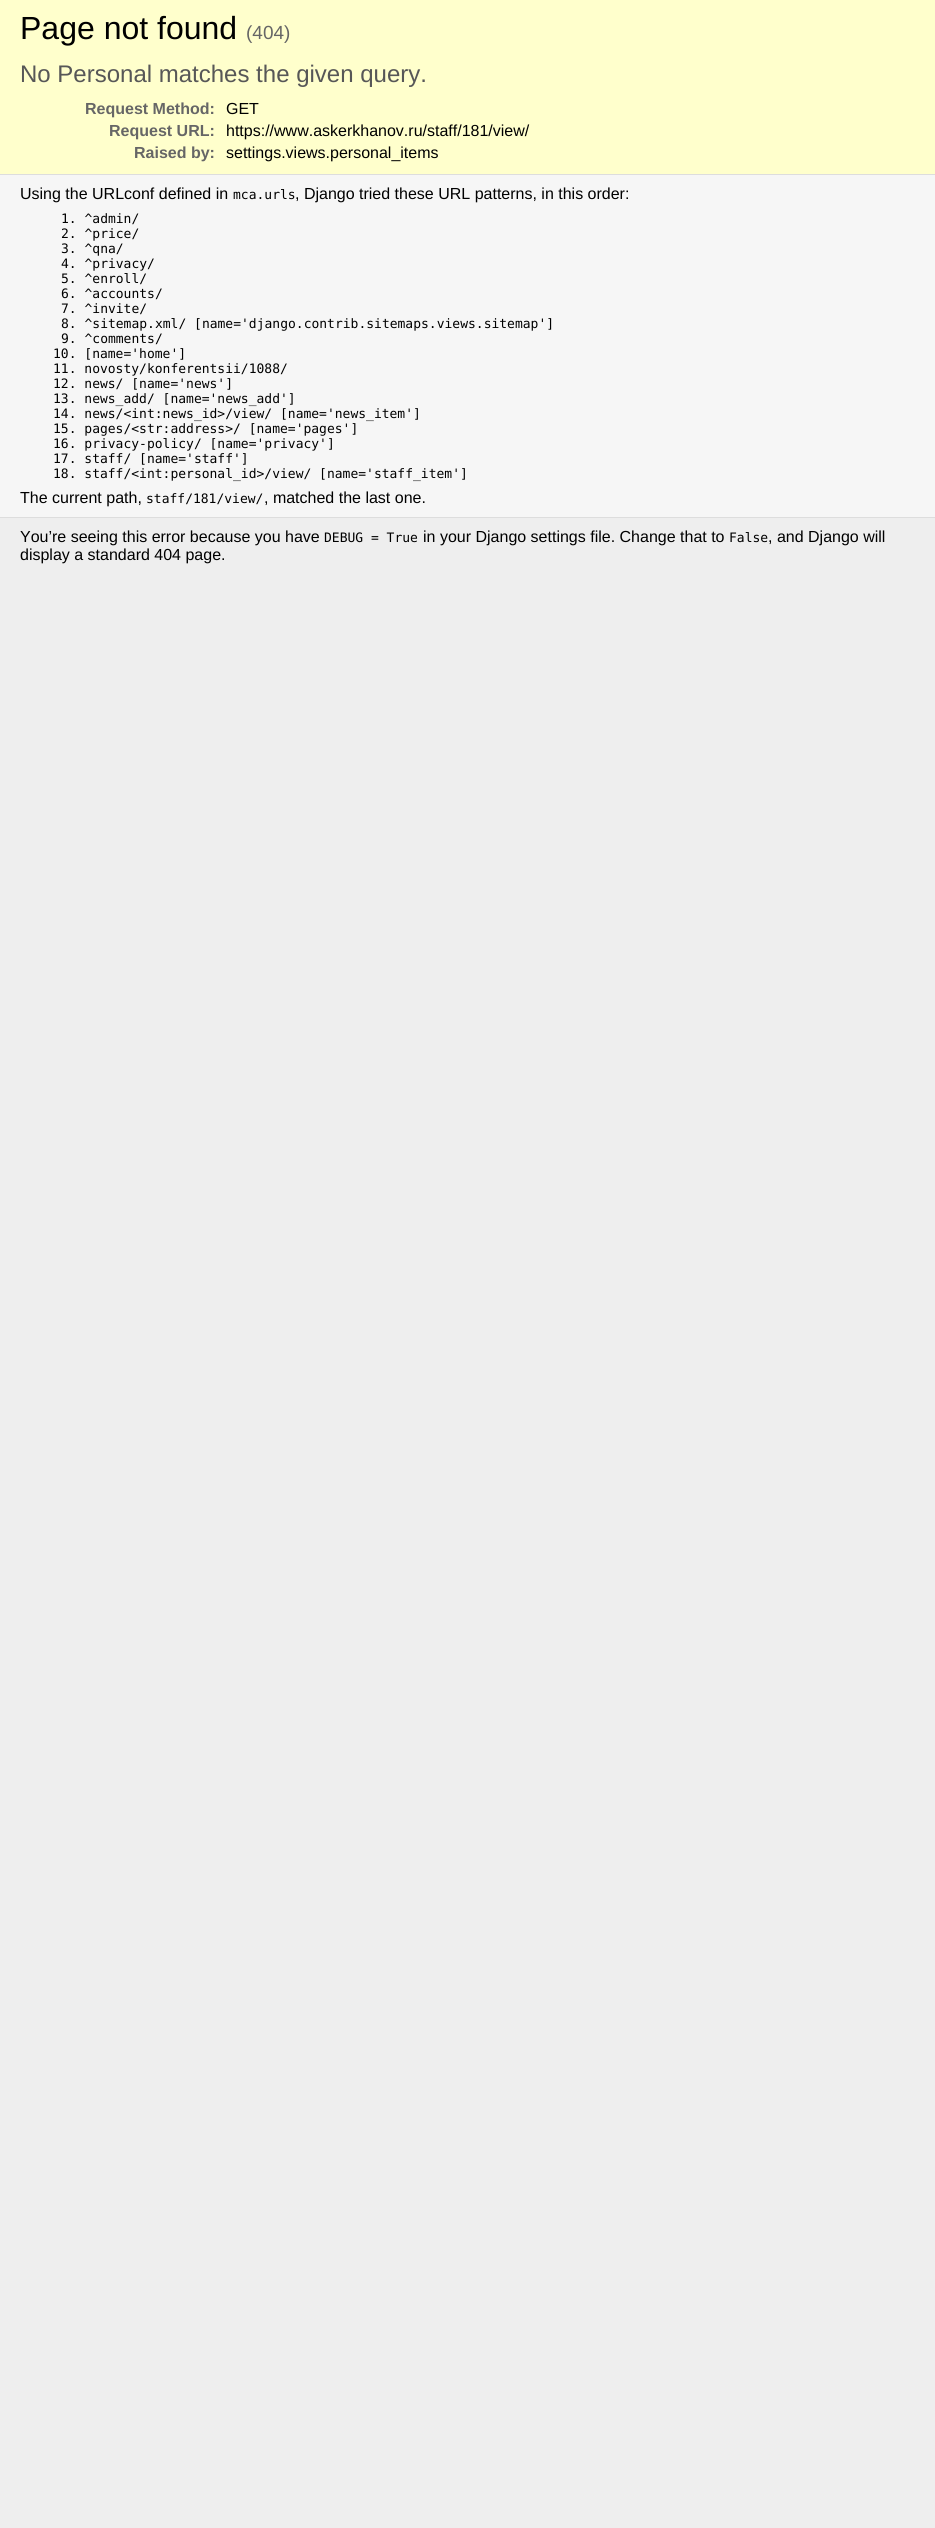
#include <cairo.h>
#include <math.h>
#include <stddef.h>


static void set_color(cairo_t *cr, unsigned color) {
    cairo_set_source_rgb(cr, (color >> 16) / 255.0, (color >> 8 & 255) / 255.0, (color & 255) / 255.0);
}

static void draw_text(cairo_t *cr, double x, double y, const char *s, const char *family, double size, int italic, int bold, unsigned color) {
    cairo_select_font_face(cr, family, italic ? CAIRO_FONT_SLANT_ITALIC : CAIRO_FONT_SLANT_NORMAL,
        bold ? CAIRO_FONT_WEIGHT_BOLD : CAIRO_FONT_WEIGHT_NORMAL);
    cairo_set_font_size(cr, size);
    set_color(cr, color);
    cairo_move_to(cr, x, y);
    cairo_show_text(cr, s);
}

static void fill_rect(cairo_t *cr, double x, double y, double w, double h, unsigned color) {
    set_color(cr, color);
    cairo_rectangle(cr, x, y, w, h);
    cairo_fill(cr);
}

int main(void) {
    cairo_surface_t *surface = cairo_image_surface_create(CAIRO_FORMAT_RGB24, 935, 2528);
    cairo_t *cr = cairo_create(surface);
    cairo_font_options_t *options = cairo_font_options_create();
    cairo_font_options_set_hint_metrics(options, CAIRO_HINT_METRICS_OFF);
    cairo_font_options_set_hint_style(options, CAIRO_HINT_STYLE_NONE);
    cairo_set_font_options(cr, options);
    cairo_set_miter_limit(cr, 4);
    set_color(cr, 0xEEEEEE);
    cairo_paint(cr);
    fill_rect(cr, 0, 0, 935, 174, 0xFFFFCC);
    fill_rect(cr, 0, 174, 935, 1, 0xDDDDDD);
    draw_text(cr, 20, 39, "Page not found", "Liberation Sans", 32, 0, 0, 0x000000);
    draw_text(cr, 246, 39, "(404)", "Liberation Sans", 19, 0, 0, 0x666666);
    draw_text(cr, 20, 82, "No Personal matches the given query.", "Liberation Sans", 24, 0, 0, 0x575757);
    draw_text(cr, 85, 114, "Request Method:", "Liberation Sans", 16, 0, 1, 0x666666);
    draw_text(cr, 226, 114, "GET", "Liberation Sans", 16, 0, 0, 0x000000);
    draw_text(cr, 109, 136, "Request URL:", "Liberation Sans", 16, 0, 1, 0x666666);
    draw_text(cr, 226, 136, "https://www.askerkhanov.ru/staff/181/view/", "Liberation Sans", 16, 0, 0, 0x000000);
    draw_text(cr, 134, 158, "Raised by:", "Liberation Sans", 16, 0, 1, 0x666666);
    draw_text(cr, 226, 158, "settings.views.personal_items", "Liberation Sans", 16, 0, 0, 0x000000);
    fill_rect(cr, 0, 175, 935, 342, 0xF6F6F6);
    fill_rect(cr, 0, 517, 935, 1, 0xDDDDDD);
    draw_text(cr, 20, 199, "Using the URLconf defined in", "Liberation Sans", 16, 0, 0, 0x000000);
    draw_text(cr, 233, 199, "mca.urls", "DejaVu Sans Mono", 13, 0, 0, 0x000000);
    draw_text(cr, 295, 199, ", Django tried these URL patterns, in this order:", "Liberation Sans", 16, 0, 0, 0x000000);
    draw_text(cr, 61, 223, "1. ^admin/", "DejaVu Sans Mono", 13, 0, 0, 0x000000);
    draw_text(cr, 61, 238, "2. ^price/", "DejaVu Sans Mono", 13, 0, 0, 0x000000);
    draw_text(cr, 61, 253, "3. ^qna/", "DejaVu Sans Mono", 13, 0, 0, 0x000000);
    draw_text(cr, 61, 268, "4. ^privacy/", "DejaVu Sans Mono", 13, 0, 0, 0x000000);
    draw_text(cr, 61, 283, "5. ^enroll/", "DejaVu Sans Mono", 13, 0, 0, 0x000000);
    draw_text(cr, 61, 298, "6. ^accounts/", "DejaVu Sans Mono", 13, 0, 0, 0x000000);
    draw_text(cr, 61, 313, "7. ^invite/", "DejaVu Sans Mono", 13, 0, 0, 0x000000);
    draw_text(cr, 61, 328, "8. ^sitemap.xml/ [name='django.contrib.sitemaps.views.sitemap']", "DejaVu Sans Mono", 13, 0, 0, 0x000000);
    draw_text(cr, 61, 343, "9. ^comments/", "DejaVu Sans Mono", 13, 0, 0, 0x000000);
    draw_text(cr, 53, 358, "10. [name='home']", "DejaVu Sans Mono", 13, 0, 0, 0x000000);
    draw_text(cr, 53, 373, "11. novosty/konferentsii/1088/", "DejaVu Sans Mono", 13, 0, 0, 0x000000);
    draw_text(cr, 53, 388, "12. news/ [name='news']", "DejaVu Sans Mono", 13, 0, 0, 0x000000);
    draw_text(cr, 53, 403, "13. news_add/ [name='news_add']", "DejaVu Sans Mono", 13, 0, 0, 0x000000);
    draw_text(cr, 53, 418, "14. news/<int:news_id>/view/ [name='news_item']", "DejaVu Sans Mono", 13, 0, 0, 0x000000);
    draw_text(cr, 53, 433, "15. pages/<str:address>/ [name='pages']", "DejaVu Sans Mono", 13, 0, 0, 0x000000);
    draw_text(cr, 53, 448, "16. privacy-policy/ [name='privacy']", "DejaVu Sans Mono", 13, 0, 0, 0x000000);
    draw_text(cr, 53, 463, "17. staff/ [name='staff']", "DejaVu Sans Mono", 13, 0, 0, 0x000000);
    draw_text(cr, 53, 478, "18. staff/<int:personal_id>/view/ [name='staff_item']", "DejaVu Sans Mono", 13, 0, 0, 0x000000);
    draw_text(cr, 20, 503, "The current path,", "Liberation Sans", 16, 0, 0, 0x000000);
    draw_text(cr, 146, 503, "staff/181/view/", "DejaVu Sans Mono", 13, 0, 0, 0x000000);
    draw_text(cr, 264, 503, ", matched the last one.", "Liberation Sans", 16, 0, 0, 0x000000);
    draw_text(cr, 20, 542, "You’re seeing this error because you have", "Liberation Sans", 16, 0, 0, 0x000000);
    draw_text(cr, 324, 542, "DEBUG = True", "DejaVu Sans Mono", 13, 0, 0, 0x000000);
    draw_text(cr, 423, 542, "in your Django settings file. Change that to", "Liberation Sans", 16, 0, 0, 0x000000);
    draw_text(cr, 729, 542, "False", "DejaVu Sans Mono", 13, 0, 0, 0x000000);
    draw_text(cr, 768, 542, ", and Django will", "Liberation Sans", 16, 0, 0, 0x000000);
    draw_text(cr, 20, 560, "display a standard 404 page.", "Liberation Sans", 16, 0, 0, 0x000000);
    cairo_surface_write_to_png(surface, "output.png");
    cairo_font_options_destroy(options);
    cairo_destroy(cr);
    cairo_surface_destroy(surface);
    return 0;
}
